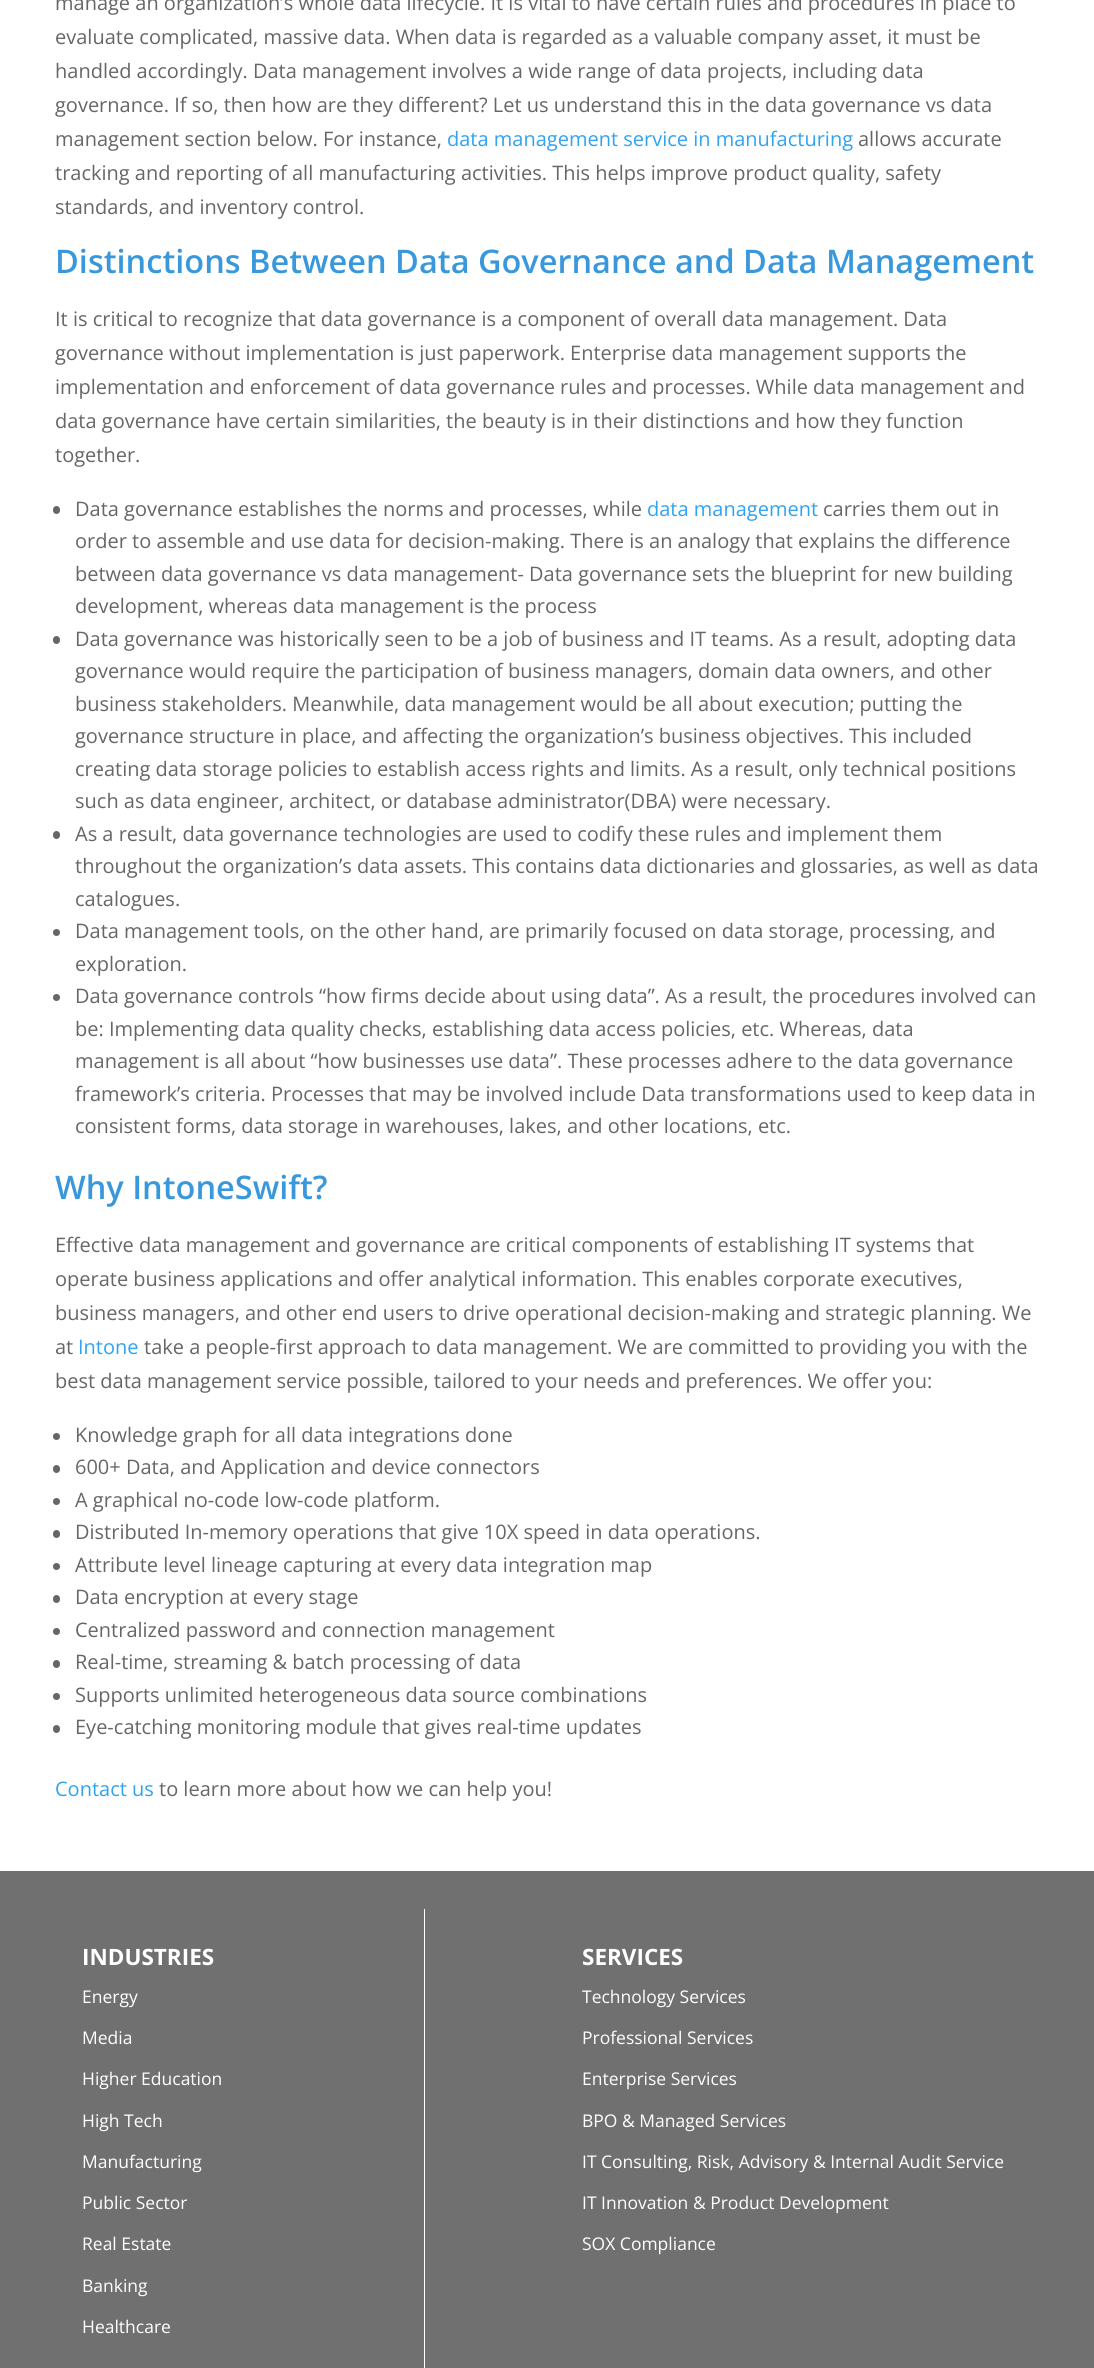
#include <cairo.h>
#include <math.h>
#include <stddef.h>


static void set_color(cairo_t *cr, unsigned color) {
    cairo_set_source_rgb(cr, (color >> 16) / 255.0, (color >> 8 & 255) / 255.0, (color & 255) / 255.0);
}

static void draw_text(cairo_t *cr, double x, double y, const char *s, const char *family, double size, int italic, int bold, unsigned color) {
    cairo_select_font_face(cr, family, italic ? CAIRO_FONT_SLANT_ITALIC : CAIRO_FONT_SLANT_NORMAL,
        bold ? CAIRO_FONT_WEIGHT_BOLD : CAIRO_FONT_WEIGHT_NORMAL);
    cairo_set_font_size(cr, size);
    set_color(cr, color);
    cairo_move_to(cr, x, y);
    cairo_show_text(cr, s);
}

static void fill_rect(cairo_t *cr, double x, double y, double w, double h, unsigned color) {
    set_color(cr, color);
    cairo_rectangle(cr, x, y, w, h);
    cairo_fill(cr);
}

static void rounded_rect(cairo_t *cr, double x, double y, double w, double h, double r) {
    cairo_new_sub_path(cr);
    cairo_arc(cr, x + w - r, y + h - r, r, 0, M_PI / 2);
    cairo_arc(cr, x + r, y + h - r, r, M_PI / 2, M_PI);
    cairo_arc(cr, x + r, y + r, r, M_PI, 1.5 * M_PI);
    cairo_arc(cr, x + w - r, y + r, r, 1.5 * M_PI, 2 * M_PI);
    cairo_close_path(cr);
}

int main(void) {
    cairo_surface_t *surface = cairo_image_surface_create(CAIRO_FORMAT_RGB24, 1094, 2368);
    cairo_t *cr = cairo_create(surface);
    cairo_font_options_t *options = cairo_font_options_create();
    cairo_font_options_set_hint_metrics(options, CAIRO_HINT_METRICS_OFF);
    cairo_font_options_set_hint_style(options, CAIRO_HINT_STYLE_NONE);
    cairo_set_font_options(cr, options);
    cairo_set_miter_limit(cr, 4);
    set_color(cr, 0xFFFFFF);
    cairo_paint(cr);
    draw_text(cr, 55, 10, "manage an organization’s whole data lifecycle. It is vital to have certain rules and procedures in place to", "Open Sans", 20, 0, 0, 0x666666);
    draw_text(cr, 55, 44, "evaluate complicated, massive data. When data is regarded as a valuable company asset, it must be", "Open Sans", 20, 0, 0, 0x666666);
    draw_text(cr, 55, 78, "handled accordingly. Data management involves a wide range of data projects, including data", "Open Sans", 20, 0, 0, 0x666666);
    draw_text(cr, 55, 112, "governance. If so, then how are they different? Let us understand this in the data governance vs data", "Open Sans", 20, 0, 0, 0x666666);
    draw_text(cr, 55, 146, "management section below. For instance,", "Open Sans", 20, 0, 0, 0x666666);
    draw_text(cr, 447, 146, "data management service in manufacturing", "Open Sans", 20, 0, 0, 0x2EA3F2);
    draw_text(cr, 858, 146, "allows accurate", "Open Sans", 20, 0, 0, 0x666666);
    draw_text(cr, 55, 180, "tracking and reporting of all manufacturing activities. This helps improve product quality, safety", "Open Sans", 20, 0, 0, 0x666666);
    draw_text(cr, 55, 214, "standards, and inventory control.", "Open Sans", 20, 0, 0, 0x666666);
    draw_text(cr, 55, 273, "Distinctions Between Data Governance and Data Management", "Open Sans SemiBold", 32.5, 0, 0, 0x3998DB);
    draw_text(cr, 55, 326, "It is critical to recognize that data governance is a component of overall data management. Data", "Open Sans", 20, 0, 0, 0x666666);
    draw_text(cr, 55, 360, "governance without implementation is just paperwork. Enterprise data management supports the", "Open Sans", 20, 0, 0, 0x666666);
    draw_text(cr, 55, 394, "implementation and enforcement of data governance rules and processes. While data management and", "Open Sans", 20, 0, 0, 0x666666);
    draw_text(cr, 55, 428, "data governance have certain similarities, the beauty is in their distinctions and how they function", "Open Sans", 20, 0, 0, 0x666666);
    draw_text(cr, 55, 462, "together.", "Open Sans", 20, 0, 0, 0x666666);
    rounded_rect(cr, 53, 506, 7, 8, 3.5);
    cairo_fill(cr);
    draw_text(cr, 75, 516, "Data governance establishes the norms and processes, while", "Open Sans", 20, 0, 0, 0x666666);
    draw_text(cr, 647, 516, "data management", "Open Sans", 20, 0, 0, 0x2EA3F2);
    draw_text(cr, 823, 516, "carries them out in", "Open Sans", 20, 0, 0, 0x666666);
    draw_text(cr, 75, 548, "order to assemble and use data for decision-making. There is an analogy that explains the difference", "Open Sans", 20, 0, 0, 0x666666);
    draw_text(cr, 75, 581, "between data governance vs data management- Data governance sets the blueprint for new building", "Open Sans", 20, 0, 0, 0x666666);
    draw_text(cr, 75, 613, "development, whereas data management is the process", "Open Sans", 20, 0, 0, 0x666666);
    rounded_rect(cr, 53, 636, 7, 8, 3.5);
    cairo_fill(cr);
    draw_text(cr, 75, 646, "Data governance was historically seen to be a job of business and IT teams. As a result, adopting data", "Open Sans", 20, 0, 0, 0x666666);
    draw_text(cr, 75, 678, "governance would require the participation of business managers, domain data owners, and other", "Open Sans", 20, 0, 0, 0x666666);
    draw_text(cr, 75, 711, "business stakeholders. Meanwhile, data management would be all about execution; putting the", "Open Sans", 20, 0, 0, 0x666666);
    draw_text(cr, 75, 743, "governance structure in place, and affecting the organization’s business objectives. This included", "Open Sans", 20, 0, 0, 0x666666);
    draw_text(cr, 75, 776, "creating data storage policies to establish access rights and limits. As a result, only technical positions", "Open Sans", 20, 0, 0, 0x666666);
    draw_text(cr, 75, 808, "such as data engineer, architect, or database administrator(DBA) were necessary.", "Open Sans", 20, 0, 0, 0x666666);
    rounded_rect(cr, 53, 831, 7, 8, 3.5);
    cairo_fill(cr);
    draw_text(cr, 75, 841, "As a result, data governance technologies are used to codify these rules and implement them", "Open Sans", 20, 0, 0, 0x666666);
    draw_text(cr, 75, 873, "throughout the organization’s data assets. This contains data dictionaries and glossaries, as well as data", "Open Sans", 20, 0, 0, 0x666666);
    draw_text(cr, 75, 906, "catalogues.", "Open Sans", 20, 0, 0, 0x666666);
    cairo_new_path(cr);
    cairo_arc(cr, 56.5, 932.5, 3.5, 0, 2 * M_PI);
    cairo_fill(cr);
    draw_text(cr, 75, 938, "Data management tools, on the other hand, are primarily focused on data storage, processing, and", "Open Sans", 20, 0, 0, 0x666666);
    draw_text(cr, 75, 971, "exploration.", "Open Sans", 20, 0, 0, 0x666666);
    cairo_new_path(cr);
    cairo_arc(cr, 56.5, 997.5, 3.5, 0, 2 * M_PI);
    cairo_fill(cr);
    draw_text(cr, 75, 1003, "Data governance controls “how firms decide about using data”. As a result, the procedures involved can", "Open Sans", 20, 0, 0, 0x666666);
    draw_text(cr, 75, 1036, "be: Implementing data quality checks, establishing data access policies, etc. Whereas, data", "Open Sans", 20, 0, 0, 0x666666);
    draw_text(cr, 75, 1068, "management is all about “how businesses use data”. These processes adhere to the data governance", "Open Sans", 20, 0, 0, 0x666666);
    draw_text(cr, 75, 1101, "framework’s criteria. Processes that may be involved include Data transformations used to keep data in", "Open Sans", 20, 0, 0, 0x666666);
    draw_text(cr, 75, 1133, "consistent forms, data storage in warehouses, lakes, and other locations, etc.", "Open Sans", 20, 0, 0, 0x666666);
    draw_text(cr, 55, 1199, "Why IntoneSwift?", "Open Sans SemiBold", 32.5, 0, 0, 0x3998DB);
    draw_text(cr, 55, 1252, "Effective data management and governance are critical components of establishing IT systems that", "Open Sans", 20, 0, 0, 0x666666);
    draw_text(cr, 55, 1286, "operate business applications and offer analytical information. This enables corporate executives,", "Open Sans", 20, 0, 0, 0x666666);
    draw_text(cr, 55, 1320, "business managers, and other end users to drive operational decision-making and strategic planning. We", "Open Sans", 20, 0, 0, 0x666666);
    draw_text(cr, 55, 1354, "at", "Open Sans", 20, 0, 0, 0x666666);
    draw_text(cr, 78, 1354, "Intone", "Open Sans", 20, 0, 0, 0x2EA3F2);
    draw_text(cr, 144, 1354, "take a people-first approach to data management. We are committed to providing you with the", "Open Sans", 20, 0, 0, 0x666666);
    draw_text(cr, 55, 1388, "best data management service possible, tailored to your needs and preferences. We offer you:", "Open Sans", 20, 0, 0, 0x666666);
    cairo_new_path(cr);
    cairo_arc(cr, 56.5, 1436.5, 3.5, 0, 2 * M_PI);
    cairo_fill(cr);
    draw_text(cr, 75, 1442, "Knowledge graph for all data integrations done", "Open Sans", 20, 0, 0, 0x666666);
    rounded_rect(cr, 53, 1465, 7, 8, 3.5);
    cairo_fill(cr);
    draw_text(cr, 75, 1474, "600+ Data, and Application and device connectors", "Open Sans", 20, 0, 0, 0x666666);
    cairo_new_path(cr);
    cairo_arc(cr, 56.5, 1501.5, 3.5, 0, 2 * M_PI);
    cairo_fill(cr);
    draw_text(cr, 75, 1507, "A graphical no-code low-code platform.", "Open Sans", 20, 0, 0, 0x666666);
    rounded_rect(cr, 53, 1530, 7, 8, 3.5);
    cairo_fill(cr);
    draw_text(cr, 75, 1539, "Distributed In-memory operations that give 10X speed in data operations.", "Open Sans", 20, 0, 0, 0x666666);
    cairo_new_path(cr);
    cairo_arc(cr, 56.5, 1566.5, 3.5, 0, 2 * M_PI);
    cairo_fill(cr);
    draw_text(cr, 75, 1572, "Attribute level lineage capturing at every data integration map", "Open Sans", 20, 0, 0, 0x666666);
    rounded_rect(cr, 53, 1595, 7, 8, 3.5);
    cairo_fill(cr);
    draw_text(cr, 75, 1604, "Data encryption at every stage", "Open Sans", 20, 0, 0, 0x666666);
    cairo_new_path(cr);
    cairo_arc(cr, 56.5, 1631.5, 3.5, 0, 2 * M_PI);
    cairo_fill(cr);
    draw_text(cr, 75, 1637, "Centralized password and connection management", "Open Sans", 20, 0, 0, 0x666666);
    rounded_rect(cr, 53, 1660, 7, 8, 3.5);
    cairo_fill(cr);
    draw_text(cr, 75, 1669, "Real-time, streaming & batch processing of data", "Open Sans", 20, 0, 0, 0x666666);
    cairo_new_path(cr);
    cairo_arc(cr, 56.5, 1696.5, 3.5, 0, 2 * M_PI);
    cairo_fill(cr);
    draw_text(cr, 75, 1702, "Supports unlimited heterogeneous data source combinations", "Open Sans", 20, 0, 0, 0x666666);
    rounded_rect(cr, 53, 1725, 7, 8, 3.5);
    cairo_fill(cr);
    draw_text(cr, 75, 1734, "Eye-catching monitoring module that gives real-time updates", "Open Sans", 20, 0, 0, 0x666666);
    draw_text(cr, 55, 1796, "Contact us", "Open Sans", 20, 0, 0, 0x2EA3F2);
    draw_text(cr, 159, 1796, "to learn more about how we can help you!", "Open Sans", 20, 0, 0, 0x666666);
    fill_rect(cr, 0, 1871, 1094, 497, 0x707070);
    draw_text(cr, 82, 1965, "INDUSTRIES", "Open Sans", 22.5, 0, 1, 0xFFFFFF);
    draw_text(cr, 82, 2003, "Energy", "Open Sans", 17.5, 0, 0, 0xFFFFFF);
    draw_text(cr, 82, 2044, "Media", "Open Sans", 17.5, 0, 0, 0xFFFFFF);
    draw_text(cr, 82, 2085, "Higher Education", "Open Sans", 17.5, 0, 0, 0xFFFFFF);
    draw_text(cr, 82, 2127, "High Tech", "Open Sans", 17.5, 0, 0, 0xFFFFFF);
    draw_text(cr, 82, 2168, "Manufacturing", "Open Sans", 17.5, 0, 0, 0xFFFFFF);
    draw_text(cr, 82, 2209, "Public Sector", "Open Sans", 17.5, 0, 0, 0xFFFFFF);
    draw_text(cr, 82, 2250, "Real Estate", "Open Sans", 17.5, 0, 0, 0xFFFFFF);
    draw_text(cr, 82, 2292, "Banking", "Open Sans", 17.5, 0, 0, 0xFFFFFF);
    draw_text(cr, 82, 2333, "Healthcare", "Open Sans", 17.5, 0, 0, 0xFFFFFF);
    fill_rect(cr, 424, 1909, 1, 459, 0xFFFFFF);
    draw_text(cr, 582, 1965, "SERVICES", "Open Sans", 22.5, 0, 1, 0xFFFFFF);
    draw_text(cr, 582, 2003, "Technology Services", "Open Sans", 17.5, 0, 0, 0xFFFFFF);
    draw_text(cr, 582, 2044, "Professional Services", "Open Sans", 17.5, 0, 0, 0xFFFFFF);
    draw_text(cr, 582, 2085, "Enterprise Services", "Open Sans", 17.5, 0, 0, 0xFFFFFF);
    draw_text(cr, 582, 2127, "BPO & Managed Services", "Open Sans", 17.5, 0, 0, 0xFFFFFF);
    draw_text(cr, 582, 2168, "IT Consulting, Risk, Advisory & Internal Audit Service", "Open Sans", 17.5, 0, 0, 0xFFFFFF);
    draw_text(cr, 582, 2209, "IT Innovation & Product Development", "Open Sans", 17.5, 0, 0, 0xFFFFFF);
    draw_text(cr, 582, 2250, "SOX Compliance", "Open Sans", 17.5, 0, 0, 0xFFFFFF);
    cairo_surface_write_to_png(surface, "output.png");
    cairo_font_options_destroy(options);
    cairo_destroy(cr);
    cairo_surface_destroy(surface);
    return 0;
}
